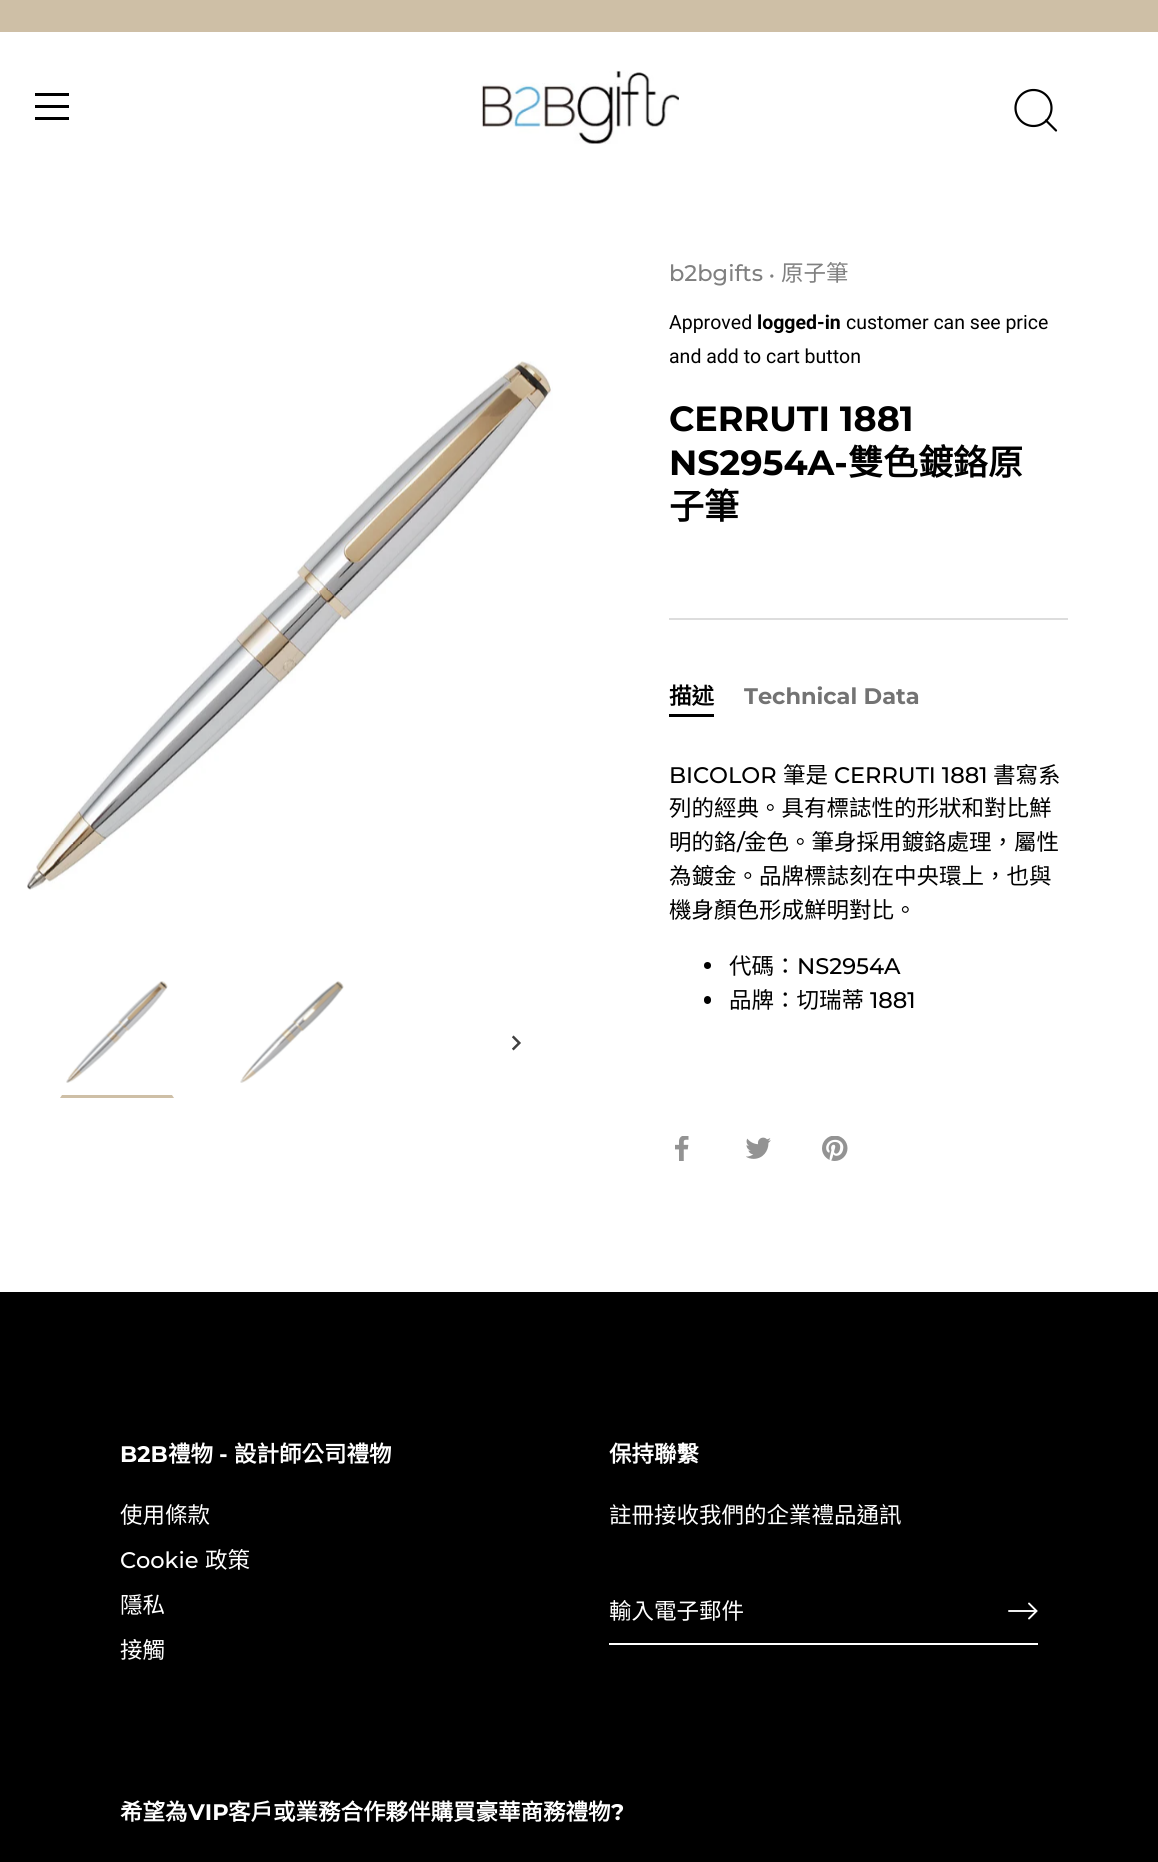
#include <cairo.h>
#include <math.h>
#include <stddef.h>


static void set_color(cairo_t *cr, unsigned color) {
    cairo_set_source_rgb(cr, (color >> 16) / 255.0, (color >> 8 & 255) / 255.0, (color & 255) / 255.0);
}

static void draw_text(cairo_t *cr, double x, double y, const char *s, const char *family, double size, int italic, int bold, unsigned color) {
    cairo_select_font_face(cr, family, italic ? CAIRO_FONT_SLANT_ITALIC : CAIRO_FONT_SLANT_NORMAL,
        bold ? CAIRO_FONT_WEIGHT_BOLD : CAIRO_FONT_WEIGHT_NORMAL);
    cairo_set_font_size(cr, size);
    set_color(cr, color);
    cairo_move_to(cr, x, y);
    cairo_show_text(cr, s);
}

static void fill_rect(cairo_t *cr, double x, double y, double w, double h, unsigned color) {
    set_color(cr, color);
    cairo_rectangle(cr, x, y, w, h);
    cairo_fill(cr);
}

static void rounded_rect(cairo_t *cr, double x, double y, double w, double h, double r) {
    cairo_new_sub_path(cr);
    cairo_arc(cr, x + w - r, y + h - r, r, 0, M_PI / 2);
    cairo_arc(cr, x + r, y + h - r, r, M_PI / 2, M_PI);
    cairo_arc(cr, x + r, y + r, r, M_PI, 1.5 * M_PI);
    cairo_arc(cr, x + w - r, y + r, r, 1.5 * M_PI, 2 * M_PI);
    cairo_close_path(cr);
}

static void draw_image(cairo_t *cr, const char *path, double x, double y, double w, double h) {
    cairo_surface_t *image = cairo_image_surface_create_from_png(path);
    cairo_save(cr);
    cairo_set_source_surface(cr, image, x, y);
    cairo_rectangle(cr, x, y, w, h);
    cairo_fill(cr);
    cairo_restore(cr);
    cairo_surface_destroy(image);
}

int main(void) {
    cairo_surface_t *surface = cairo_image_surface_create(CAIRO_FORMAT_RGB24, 1158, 1862);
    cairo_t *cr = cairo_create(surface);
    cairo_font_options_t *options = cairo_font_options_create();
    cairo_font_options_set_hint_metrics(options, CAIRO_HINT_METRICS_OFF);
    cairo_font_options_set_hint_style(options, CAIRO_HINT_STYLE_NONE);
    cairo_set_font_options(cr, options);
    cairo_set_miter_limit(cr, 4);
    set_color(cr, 0xFFFFFF);
    cairo_paint(cr);
    fill_rect(cr, 0, 0, 1158, 32, 0xCEBFA6);
    fill_rect(cr, 35, 93, 34, 3, 0x000000);
    fill_rect(cr, 35, 105, 34, 3, 0x000000);
    fill_rect(cr, 35, 117, 34, 3, 0x000000);
    draw_image(cr, "assets/img1.png", 481, 70, 198, 74);
    cairo_arc(cr, 1033.5, 108, 18, 0, 2 * M_PI);
    cairo_set_line_width(cr, 2.2);
    cairo_stroke(cr);
    cairo_new_path(cr);
    cairo_move_to(cr, 1056, 130.5);
    cairo_line_to(cr, 1046, 120.5);
    cairo_set_line_cap(cr, CAIRO_LINE_CAP_ROUND);
    cairo_set_line_join(cr, CAIRO_LINE_JOIN_ROUND);
    cairo_stroke(cr);
    draw_image(cr, "assets/img2.png", 27, 361, 526, 529);
    set_color(cr, 0xCEBFA6);
    cairo_new_path(cr);
    cairo_move_to(cr, 174, 1098);
    cairo_line_to(cr, 60, 1098);
    cairo_line_to(cr, 62, 1095);
    cairo_line_to(cr, 172, 1095);
    cairo_close_path(cr);
    cairo_fill(cr);
    draw_image(cr, "assets/img3.png", 66, 981, 102, 102);
    draw_image(cr, "assets/img4.png", 240, 981, 104, 102);
    draw_image(cr, "assets/img5.png", 512, 1035, 9, 16);
    draw_text(cr, 669, 281, "b2bgifts", "Montserrat Medium", 22.5, 0, 0, 0x808080);
    draw_text(cr, 769, 281, "•", "Montserrat Medium", 18, 0, 0, 0x808080);
    draw_text(cr, 781, 281, "原子筆", "Noto Sans CJK TC", 22.5, 0, 0, 0x808080);
    draw_text(cr, 669, 329, "Approved", "Roboto", 19.5, 0, 0, 0x000000);
    draw_text(cr, 757, 329, "logged-in", "Roboto", 19.5, 0, 1, 0x000000);
    draw_text(cr, 846, 329, "customer can see price", "Roboto", 19.5, 0, 0, 0x000000);
    draw_text(cr, 669, 363, "and add to cart button", "Roboto", 19.5, 0, 0, 0x000000);
    draw_text(cr, 669, 431, "CERRUTI 1881", "Montserrat", 35, 0, 1, 0x000000);
    draw_text(cr, 669, 475, "NS2954A-", "Montserrat", 35, 0, 1, 0x000000);
    draw_text(cr, 848, 475, "雙色鍍鉻原", "Noto Sans CJK TC", 35, 0, 1, 0x000000);
    draw_text(cr, 669, 519, "子筆", "Noto Sans CJK TC", 35, 0, 1, 0x000000);
    fill_rect(cr, 669, 618, 399, 2, 0xDDDDDD);
    draw_text(cr, 669, 704, "描述", "Noto Sans CJK TC", 22.5, 0, 1, 0x000000);
    fill_rect(cr, 669, 714, 45, 3, 0x000000);
    draw_text(cr, 744, 704, "Technical Data", "Montserrat", 22.5, 0, 1, 0x737373);
    draw_text(cr, 669, 783, "BICOLOR", "Montserrat Medium", 22.5, 0, 0, 0x000000);
    draw_text(cr, 783, 783, "筆是", "Noto Sans CJK TC", 22.5, 0, 0, 0x000000);
    draw_text(cr, 834, 783, "CERRUTI 1881", "Montserrat Medium", 22.5, 0, 0, 0x000000);
    draw_text(cr, 993, 783, "書寫系", "Noto Sans CJK TC", 22.5, 0, 0, 0x000000);
    draw_text(cr, 669, 816, "列的經典。具有標誌性的形狀和對比鮮", "Noto Sans CJK TC", 22.5, 0, 0, 0x000000);
    draw_text(cr, 669, 850, "明的鉻", "Noto Sans CJK TC", 22.5, 0, 0, 0x000000);
    draw_text(cr, 737, 850, "/", "Montserrat Medium", 22.5, 0, 0, 0x000000);
    draw_text(cr, 744, 850, "金色。筆身採用鍍鉻處理，屬性", "Noto Sans CJK TC", 22.5, 0, 0, 0x000000);
    draw_text(cr, 669, 884, "為鍍金。品牌標誌刻在中央環上，也與", "Noto Sans CJK TC", 22.5, 0, 0, 0x000000);
    draw_text(cr, 669, 918, "機身顏色形成鮮明對比。", "Noto Sans CJK TC", 22.5, 0, 0, 0x000000);
    cairo_new_path(cr);
    cairo_arc(cr, 707.5, 965.5, 3.5, 0, 2 * M_PI);
    cairo_fill(cr);
    draw_text(cr, 729, 974, "代碼：", "Noto Sans CJK TC", 22.5, 0, 0, 0x000000);
    draw_text(cr, 797, 974, "NS2954A", "Montserrat Medium", 22.5, 0, 0, 0x000000);
    rounded_rect(cr, 704, 996, 7, 8, 3.5);
    cairo_fill(cr);
    draw_text(cr, 729, 1008, "品牌：切瑞蒂", "Noto Sans CJK TC", 22.5, 0, 0, 0x000000);
    draw_text(cr, 870, 1008, "1881", "Montserrat Medium", 22.5, 0, 0, 0x000000);
    draw_image(cr, "assets/img6.png", 675, 1136, 14, 25);
    draw_image(cr, "assets/img7.png", 746, 1137, 25, 22);
    draw_image(cr, "assets/img8.png", 822, 1136, 26, 25);
    fill_rect(cr, 0, 1292, 1158, 570, 0x000000);
    draw_text(cr, 120, 1462, "B2B", "Montserrat", 22.5, 0, 1, 0xFFFFFF);
    draw_text(cr, 168, 1462, "禮物", "Noto Sans CJK TC", 22.5, 0, 1, 0xFFFFFF);
    draw_text(cr, 219, 1462, "-", "Montserrat", 22.5, 0, 1, 0xFFFFFF);
    draw_text(cr, 234, 1462, "設計師公司禮物", "Noto Sans CJK TC", 22.5, 0, 1, 0xFFFFFF);
    draw_text(cr, 120, 1523, "使用條款", "Noto Sans CJK TC", 22.5, 0, 0, 0xFFFFFF);
    draw_text(cr, 120, 1568, "Cookie", "Montserrat Medium", 22.5, 0, 0, 0xFFFFFF);
    draw_text(cr, 205, 1568, "政策", "Noto Sans CJK TC", 22.5, 0, 0, 0xFFFFFF);
    draw_text(cr, 120, 1613, "隱私", "Noto Sans CJK TC", 22.5, 0, 0, 0xFFFFFF);
    draw_text(cr, 120, 1658, "接觸", "Noto Sans CJK TC", 22.5, 0, 0, 0xFFFFFF);
    draw_text(cr, 609, 1462, "保持聯繫", "Noto Sans CJK TC", 22.5, 0, 1, 0xFFFFFF);
    draw_text(cr, 609, 1523, "註冊接收我們的企業禮品通訊", "Noto Sans CJK TC", 22.5, 0, 0, 0xFFFFFF);
    fill_rect(cr, 609, 1643, 429, 2, 0xFFFFFF);
    draw_text(cr, 609, 1619, "輸入電子郵件", "Noto Sans CJK TC", 22.5, 0, 0, 0xFFFFFF);
    cairo_new_path(cr);
    cairo_move_to(cr, 1029, 1618.5);
    cairo_line_to(cr, 1036.5, 1611);
    cairo_line_to(cr, 1029, 1603.5);
    cairo_set_line_width(cr, 1.9);
    cairo_set_line_join(cr, CAIRO_LINE_JOIN_MITER);
    cairo_stroke(cr);
    cairo_new_path(cr);
    cairo_move_to(cr, 1035.5, 1611);
    cairo_line_to(cr, 1009, 1611);
    cairo_set_line_join(cr, CAIRO_LINE_JOIN_ROUND);
    cairo_stroke(cr);
    draw_text(cr, 120, 1820, "希望為", "Noto Sans CJK TC", 22.5, 0, 1, 0xFFFFFF);
    draw_text(cr, 188, 1820, "VIP", "Montserrat", 22.5, 0, 1, 0xFFFFFF);
    draw_text(cr, 228, 1820, "客戶或業務合作夥伴購買豪華商務禮物", "Noto Sans CJK TC", 22.5, 0, 1, 0xFFFFFF);
    draw_text(cr, 611, 1820, "?", "Montserrat", 22.5, 0, 1, 0xFFFFFF);
    cairo_surface_write_to_png(surface, "output.png");
    cairo_font_options_destroy(options);
    cairo_destroy(cr);
    cairo_surface_destroy(surface);
    return 0;
}
